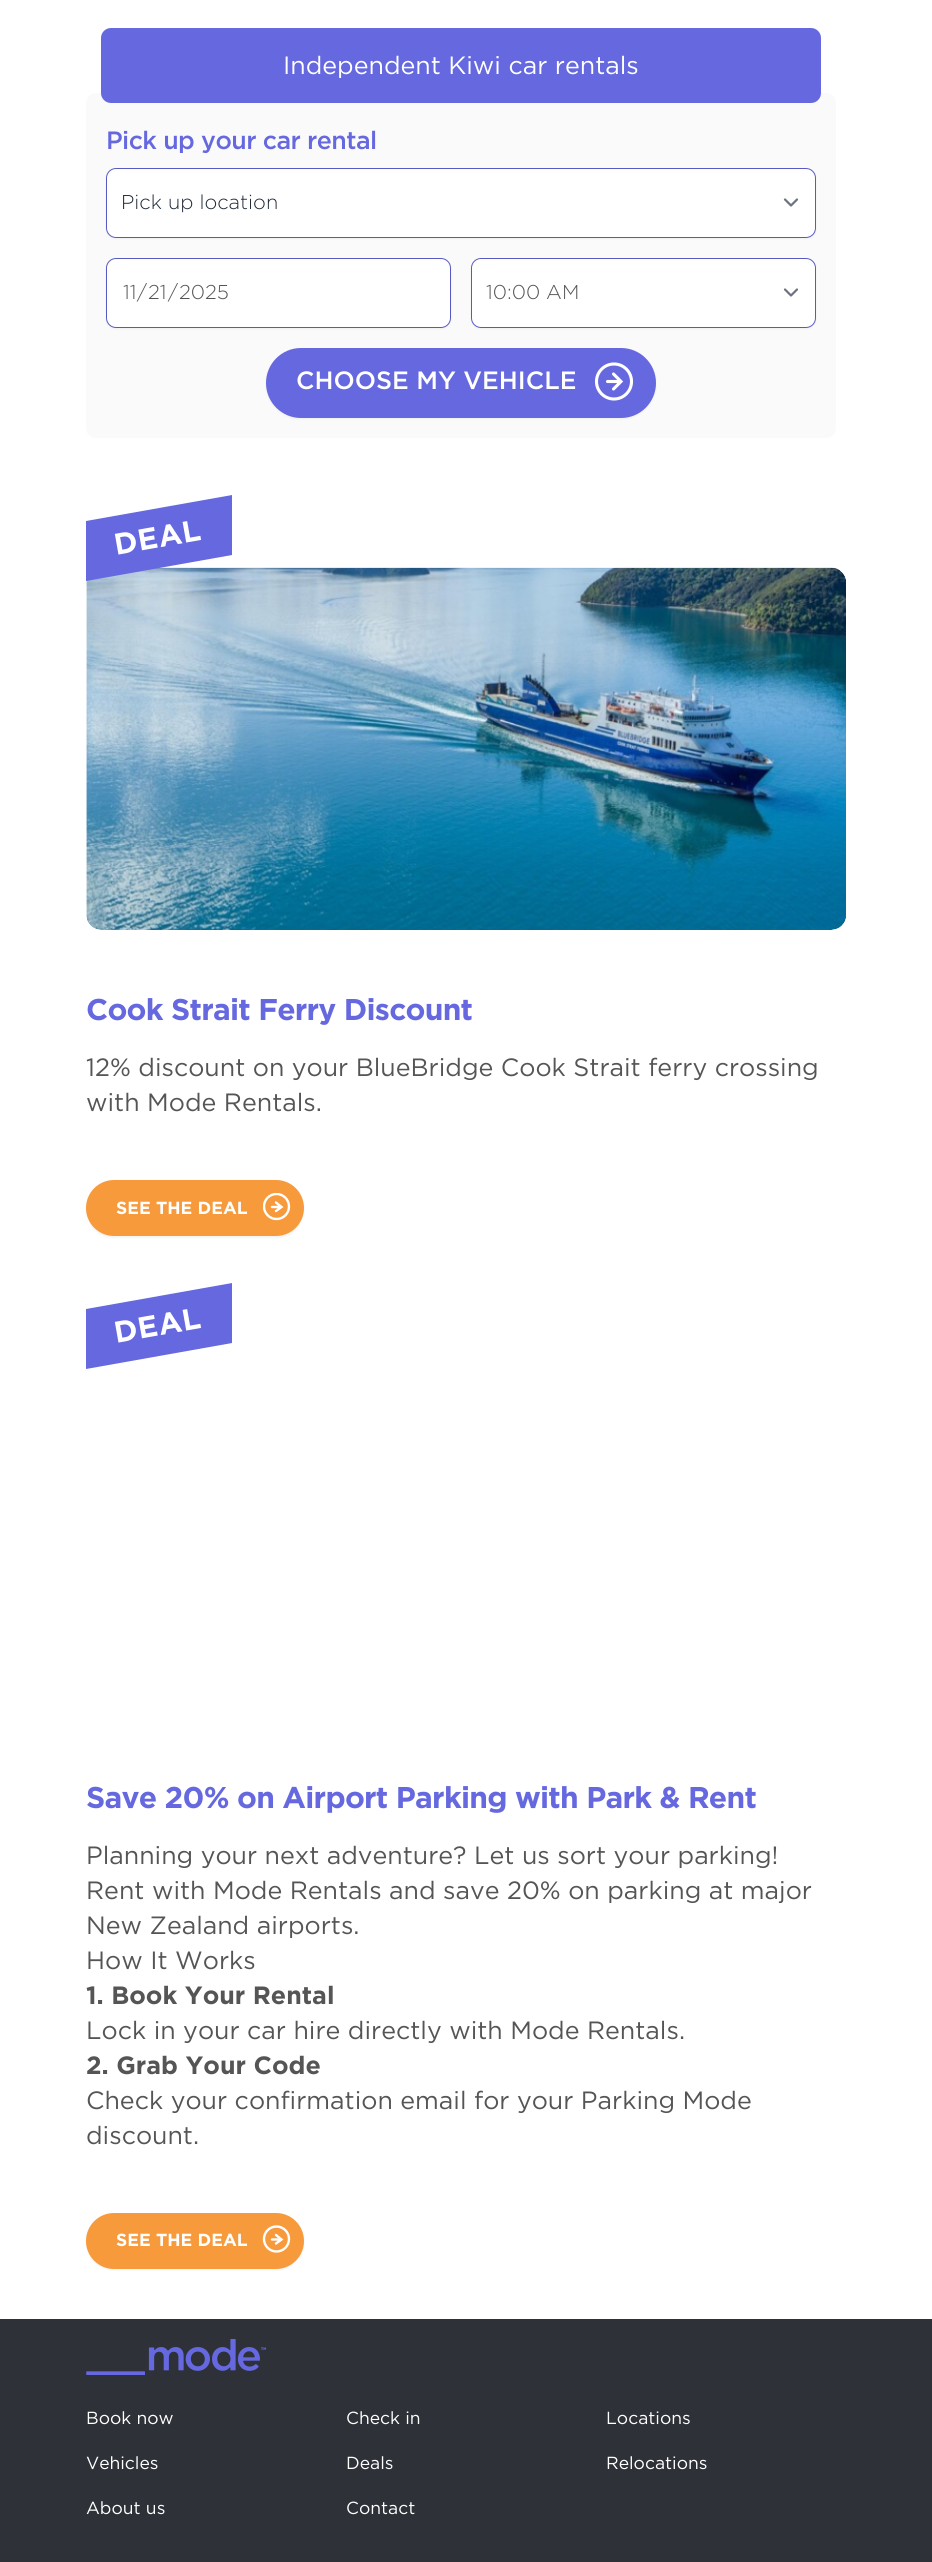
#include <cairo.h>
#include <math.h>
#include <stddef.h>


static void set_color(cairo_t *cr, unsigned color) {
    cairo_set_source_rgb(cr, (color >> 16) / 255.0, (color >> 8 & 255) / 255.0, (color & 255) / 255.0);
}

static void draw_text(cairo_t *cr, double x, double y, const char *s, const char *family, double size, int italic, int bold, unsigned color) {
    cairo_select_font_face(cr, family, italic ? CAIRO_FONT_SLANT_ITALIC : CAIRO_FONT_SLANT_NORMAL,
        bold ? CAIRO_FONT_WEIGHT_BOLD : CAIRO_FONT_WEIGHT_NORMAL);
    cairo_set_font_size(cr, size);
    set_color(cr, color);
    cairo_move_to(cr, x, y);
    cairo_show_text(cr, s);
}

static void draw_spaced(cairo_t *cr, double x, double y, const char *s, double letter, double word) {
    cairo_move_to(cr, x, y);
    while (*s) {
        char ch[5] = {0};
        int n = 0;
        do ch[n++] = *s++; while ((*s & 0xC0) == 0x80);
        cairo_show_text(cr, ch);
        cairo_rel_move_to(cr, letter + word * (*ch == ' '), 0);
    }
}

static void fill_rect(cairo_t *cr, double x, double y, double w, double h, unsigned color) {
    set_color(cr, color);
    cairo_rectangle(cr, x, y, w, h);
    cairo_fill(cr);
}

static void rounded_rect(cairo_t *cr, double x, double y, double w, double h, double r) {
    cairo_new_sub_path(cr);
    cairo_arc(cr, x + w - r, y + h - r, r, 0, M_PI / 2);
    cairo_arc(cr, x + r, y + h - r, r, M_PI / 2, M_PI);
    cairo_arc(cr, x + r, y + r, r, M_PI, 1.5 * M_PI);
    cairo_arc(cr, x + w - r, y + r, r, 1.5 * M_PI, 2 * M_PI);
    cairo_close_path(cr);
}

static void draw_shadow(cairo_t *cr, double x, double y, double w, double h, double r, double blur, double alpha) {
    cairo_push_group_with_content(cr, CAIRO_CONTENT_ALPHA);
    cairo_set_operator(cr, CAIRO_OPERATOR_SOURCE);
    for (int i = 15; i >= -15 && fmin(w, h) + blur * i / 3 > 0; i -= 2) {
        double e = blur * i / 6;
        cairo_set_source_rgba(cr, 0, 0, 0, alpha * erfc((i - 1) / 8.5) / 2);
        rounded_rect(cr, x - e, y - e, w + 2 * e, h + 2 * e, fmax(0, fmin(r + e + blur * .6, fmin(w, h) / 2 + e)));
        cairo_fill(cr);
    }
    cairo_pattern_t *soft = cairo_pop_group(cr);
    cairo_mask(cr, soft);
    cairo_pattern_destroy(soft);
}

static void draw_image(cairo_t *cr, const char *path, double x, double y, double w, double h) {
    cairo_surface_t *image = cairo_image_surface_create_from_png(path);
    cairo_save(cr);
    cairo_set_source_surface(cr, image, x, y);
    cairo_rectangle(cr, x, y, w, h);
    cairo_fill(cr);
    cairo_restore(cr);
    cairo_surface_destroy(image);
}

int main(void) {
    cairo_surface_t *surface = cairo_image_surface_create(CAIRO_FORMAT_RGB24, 932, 2562);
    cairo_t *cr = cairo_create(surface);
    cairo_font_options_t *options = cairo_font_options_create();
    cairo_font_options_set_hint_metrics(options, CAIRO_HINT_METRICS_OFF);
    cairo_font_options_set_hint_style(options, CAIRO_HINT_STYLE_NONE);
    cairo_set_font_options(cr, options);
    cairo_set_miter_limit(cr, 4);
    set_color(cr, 0xFFFFFF);
    cairo_paint(cr);
    set_color(cr, 0xFAFAFA);
    rounded_rect(cr, 86, 93, 750, 345, 10);
    cairo_fill(cr);
    set_color(cr, 0x6568DF);
    rounded_rect(cr, 101, 28, 720, 75, 10);
    cairo_fill(cr);
    draw_text(cr, 283, 74, "Independent Kiwi car rentals", "Gotham", 25, 0, 0, 0xFFFFFF);
    cairo_select_font_face(cr, "Gotham Medium", CAIRO_FONT_SLANT_NORMAL, CAIRO_FONT_WEIGHT_NORMAL);
    set_color(cr, 0x6568DF);
    draw_spaced(cr, 106, 149, "Pick up your car rental", -0.6, 0);
    set_color(cr, 0x000000);
    draw_shadow(cr, 106, 169, 710, 70, 10, 1, 0.05);
    set_color(cr, 0xFFFFFF);
    rounded_rect(cr, 106, 168, 710, 70, 10);
    cairo_fill(cr);
    cairo_new_path(cr);
    cairo_move_to(cr, 785, 199.5);
    cairo_line_to(cr, 791, 205.5);
    cairo_line_to(cr, 797, 199.5);
    set_color(cr, 0x6B7280);
    cairo_set_line_width(cr, 2.2);
    cairo_set_line_cap(cr, CAIRO_LINE_CAP_ROUND);
    cairo_set_line_join(cr, CAIRO_LINE_JOIN_ROUND);
    cairo_stroke(cr);
    rounded_rect(cr, 106.5, 168.5, 709, 69, 9.5);
    set_color(cr, 0x585AC4);
    cairo_set_line_width(cr, 1);
    cairo_set_line_cap(cr, CAIRO_LINE_CAP_BUTT);
    cairo_set_line_join(cr, CAIRO_LINE_JOIN_MITER);
    cairo_stroke(cr);
    draw_text(cr, 121, 209, "Pick up location", "Gotham Light", 20, 0, 0, 0x1F2937);
    set_color(cr, 0x000000);
    draw_shadow(cr, 106, 259, 345, 70, 10, 1, 0.05);
    set_color(cr, 0xFFFFFF);
    rounded_rect(cr, 106.5, 258.5, 344, 69, 9.5);
    cairo_fill_preserve(cr);
    set_color(cr, 0x585AC4);
    cairo_stroke(cr);
    draw_text(cr, 123, 299, "11", "Gotham Light", 20, 0, 0, 0x555555);
    draw_text(cr, 137, 299, "/", "Gotham Light", 20, 0, 0, 0x555555);
    draw_text(cr, 148, 299, "21", "Gotham Light", 20, 0, 0, 0x555555);
    draw_text(cr, 168, 299, "/", "Gotham Light", 20, 0, 0, 0x555555);
    draw_text(cr, 179, 299, "2025", "Gotham Light", 20, 0, 0, 0x555555);
    set_color(cr, 0x000000);
    draw_shadow(cr, 471, 259, 345, 70, 10, 1, 0.05);
    set_color(cr, 0xFFFFFF);
    rounded_rect(cr, 471, 258, 345, 70, 10);
    cairo_fill(cr);
    cairo_new_path(cr);
    cairo_move_to(cr, 785, 289.5);
    cairo_line_to(cr, 791, 295.5);
    cairo_line_to(cr, 797, 289.5);
    set_color(cr, 0x6B7280);
    cairo_set_line_width(cr, 2.2);
    cairo_set_line_cap(cr, CAIRO_LINE_CAP_ROUND);
    cairo_set_line_join(cr, CAIRO_LINE_JOIN_ROUND);
    cairo_stroke(cr);
    rounded_rect(cr, 471.5, 258.5, 344, 69, 9.5);
    set_color(cr, 0x585AC4);
    cairo_set_line_width(cr, 1);
    cairo_set_line_cap(cr, CAIRO_LINE_CAP_BUTT);
    cairo_set_line_join(cr, CAIRO_LINE_JOIN_MITER);
    cairo_stroke(cr);
    draw_text(cr, 486, 299, "10:00 AM", "Gotham Light", 20, 0, 0, 0x555555);
    set_color(cr, 0x000000);
    draw_shadow(cr, 266, 349, 390, 70, 35, 1, 0.05);
    set_color(cr, 0x6568DF);
    rounded_rect(cr, 266, 348, 390, 70, 35);
    cairo_fill(cr);
    draw_text(cr, 296, 389, "CHOOSE MY VEHICLE", "Gotham Medium", 25, 0, 0, 0xFFFFFF);
    cairo_new_path(cr);
    cairo_arc(cr, 614, 381.5, 17.5, 0, 2 * M_PI);
    cairo_set_line_width(cr, 3.1);
    cairo_stroke(cr);
    cairo_new_path(cr);
    cairo_move_to(cr, 607.5, 381.5);
    cairo_line_to(cr, 621, 381.5);
    cairo_move_to(cr, 613.5, 374);
    cairo_line_to(cr, 621, 381.5);
    cairo_line_to(cr, 613.5, 389);
    cairo_set_line_cap(cr, CAIRO_LINE_CAP_ROUND);
    cairo_stroke(cr);
    draw_image(cr, "assets/img1.png", 86, 567, 760, 363);
    set_color(cr, 0x6568DF);
    cairo_new_path(cr);
    cairo_move_to(cr, 86, 521);
    cairo_line_to(cr, 232, 495);
    cairo_line_to(cr, 232, 555);
    cairo_line_to(cr, 86, 581);
    cairo_close_path(cr);
    cairo_fill(cr);
    cairo_select_font_face(cr, "Gotham", CAIRO_FONT_SLANT_NORMAL, CAIRO_FONT_WEIGHT_BOLD);
    cairo_set_font_size(cr, 30);
    set_color(cr, 0xFFFFFF);
    cairo_save(cr);
    cairo_translate(cr, 116, 555);
    cairo_rotate(cr, -10 * M_PI / 180);
    draw_spaced(cr, 0, 0, "DEAL", 0.5, 0);
    cairo_restore(cr);
    set_color(cr, 0x6568DF);
    draw_spaced(cr, 86, 1020, "Cook Strait Ferry Discount", -0.75, 0);
    draw_text(cr, 86, 1076, "12% discount on your BlueBridge Cook Strait ferry crossing", "Gotham", 25, 0, 0, 0x555555);
    draw_text(cr, 86, 1111, "with Mode Rentals.", "Gotham", 25, 0, 0, 0x555555);
    set_color(cr, 0x000000);
    draw_shadow(cr, 86, 1181, 218, 57, 28.5, 1, 0.05);
    set_color(cr, 0xF79A3B);
    rounded_rect(cr, 86, 1180, 218, 56, 28);
    cairo_fill(cr);
    draw_text(cr, 116, 1214, "SEE THE DEAL", "Gotham", 17.5, 0, 1, 0xFFFFFF);
    cairo_save(cr);
    cairo_rectangle(cr, 263, 1193, 28, 28);
    cairo_clip(cr);
    cairo_arc(cr, 276.5, 1206.5, 12.5, 0, 2 * M_PI);
    cairo_set_line_width(cr, 2.4);
    cairo_set_line_cap(cr, CAIRO_LINE_CAP_BUTT);
    cairo_stroke(cr);
    cairo_restore(cr);
    cairo_new_path(cr);
    cairo_move_to(cr, 272, 1207);
    cairo_line_to(cr, 281.5, 1207);
    cairo_move_to(cr, 276, 1202.5);
    cairo_line_to(cr, 281.5, 1207);
    cairo_line_to(cr, 276, 1211);
    cairo_set_line_width(cr, 2.4);
    cairo_stroke(cr);
    set_color(cr, 0x6568DF);
    cairo_new_path(cr);
    cairo_move_to(cr, 86, 1309);
    cairo_line_to(cr, 232, 1283);
    cairo_line_to(cr, 232, 1343);
    cairo_line_to(cr, 86, 1369);
    cairo_close_path(cr);
    cairo_fill(cr);
    cairo_set_font_size(cr, 30);
    set_color(cr, 0xFFFFFF);
    cairo_save(cr);
    cairo_translate(cr, 116, 1343);
    cairo_rotate(cr, -10 * M_PI / 180);
    draw_spaced(cr, 0, 0, "DEAL", 0.5, 0);
    cairo_restore(cr);
    set_color(cr, 0x6568DF);
    draw_spaced(cr, 86, 1808, "Save 20% on Airport Parking with Park & Rent", -0.75, 0);
    draw_text(cr, 86, 1864, "Planning your next adventure? Let us sort your parking!", "Gotham", 25, 0, 0, 0x555555);
    draw_text(cr, 86, 1899, "Rent with Mode Rentals and save 20% on parking at major", "Gotham", 25, 0, 0, 0x555555);
    draw_text(cr, 86, 1934, "New Zealand airports.", "Gotham", 25, 0, 0, 0x555555);
    draw_text(cr, 86, 1969, "How It Works", "Gotham", 25, 0, 0, 0x555555);
    draw_text(cr, 86, 2004, "1. Book Your Rental", "Gotham", 25, 0, 1, 0x555555);
    draw_text(cr, 86, 2039, "Lock in your car hire directly with Mode Rentals.", "Gotham", 25, 0, 0, 0x555555);
    draw_text(cr, 86, 2074, "2. Grab Your Code", "Gotham", 25, 0, 1, 0x555555);
    draw_text(cr, 86, 2109, "Check your confirmation email for your Parking Mode", "Gotham", 25, 0, 0, 0x555555);
    draw_text(cr, 86, 2144, "discount.", "Gotham", 25, 0, 0, 0x555555);
    set_color(cr, 0x000000);
    draw_shadow(cr, 86, 2214, 218, 56, 28, 1, 0.05);
    set_color(cr, 0xF79A3B);
    rounded_rect(cr, 86, 2213, 218, 56, 28);
    cairo_fill(cr);
    draw_text(cr, 116, 2246, "SEE THE DEAL", "Gotham", 17.5, 0, 1, 0xFFFFFF);
    cairo_new_path(cr);
    cairo_arc(cr, 276.5, 2239, 12.5, 0, 2 * M_PI);
    cairo_set_line_cap(cr, CAIRO_LINE_CAP_BUTT);
    cairo_stroke(cr);
    cairo_new_path(cr);
    cairo_move_to(cr, 272, 2239.5);
    cairo_line_to(cr, 281.5, 2239.5);
    cairo_move_to(cr, 276, 2235);
    cairo_line_to(cr, 281.5, 2239.5);
    cairo_line_to(cr, 276, 2243.5);
    cairo_set_line_cap(cr, CAIRO_LINE_CAP_ROUND);
    cairo_stroke(cr);
    fill_rect(cr, 0, 2319, 932, 243, 0x2E3137);
    draw_image(cr, "assets/img2.png", 86, 2339, 180, 36);
    draw_text(cr, 86, 2424, "Book now", "Gotham", 17.5, 0, 0, 0xFFFFFF);
    draw_text(cr, 346, 2424, "Check in", "Gotham", 17.5, 0, 0, 0xFFFFFF);
    draw_text(cr, 606, 2424, "Locations", "Gotham", 17.5, 0, 0, 0xFFFFFF);
    draw_text(cr, 86, 2469, "Vehicles", "Gotham", 17.5, 0, 0, 0xFFFFFF);
    draw_text(cr, 346, 2469, "Deals", "Gotham", 17.5, 0, 0, 0xFFFFFF);
    draw_text(cr, 606, 2469, "Relocations", "Gotham", 17.5, 0, 0, 0xFFFFFF);
    draw_text(cr, 86, 2514, "About us", "Gotham", 17.5, 0, 0, 0xFFFFFF);
    draw_text(cr, 346, 2514, "Contact", "Gotham", 17.5, 0, 0, 0xFFFFFF);
    cairo_surface_write_to_png(surface, "output.png");
    cairo_font_options_destroy(options);
    cairo_destroy(cr);
    cairo_surface_destroy(surface);
    return 0;
}
